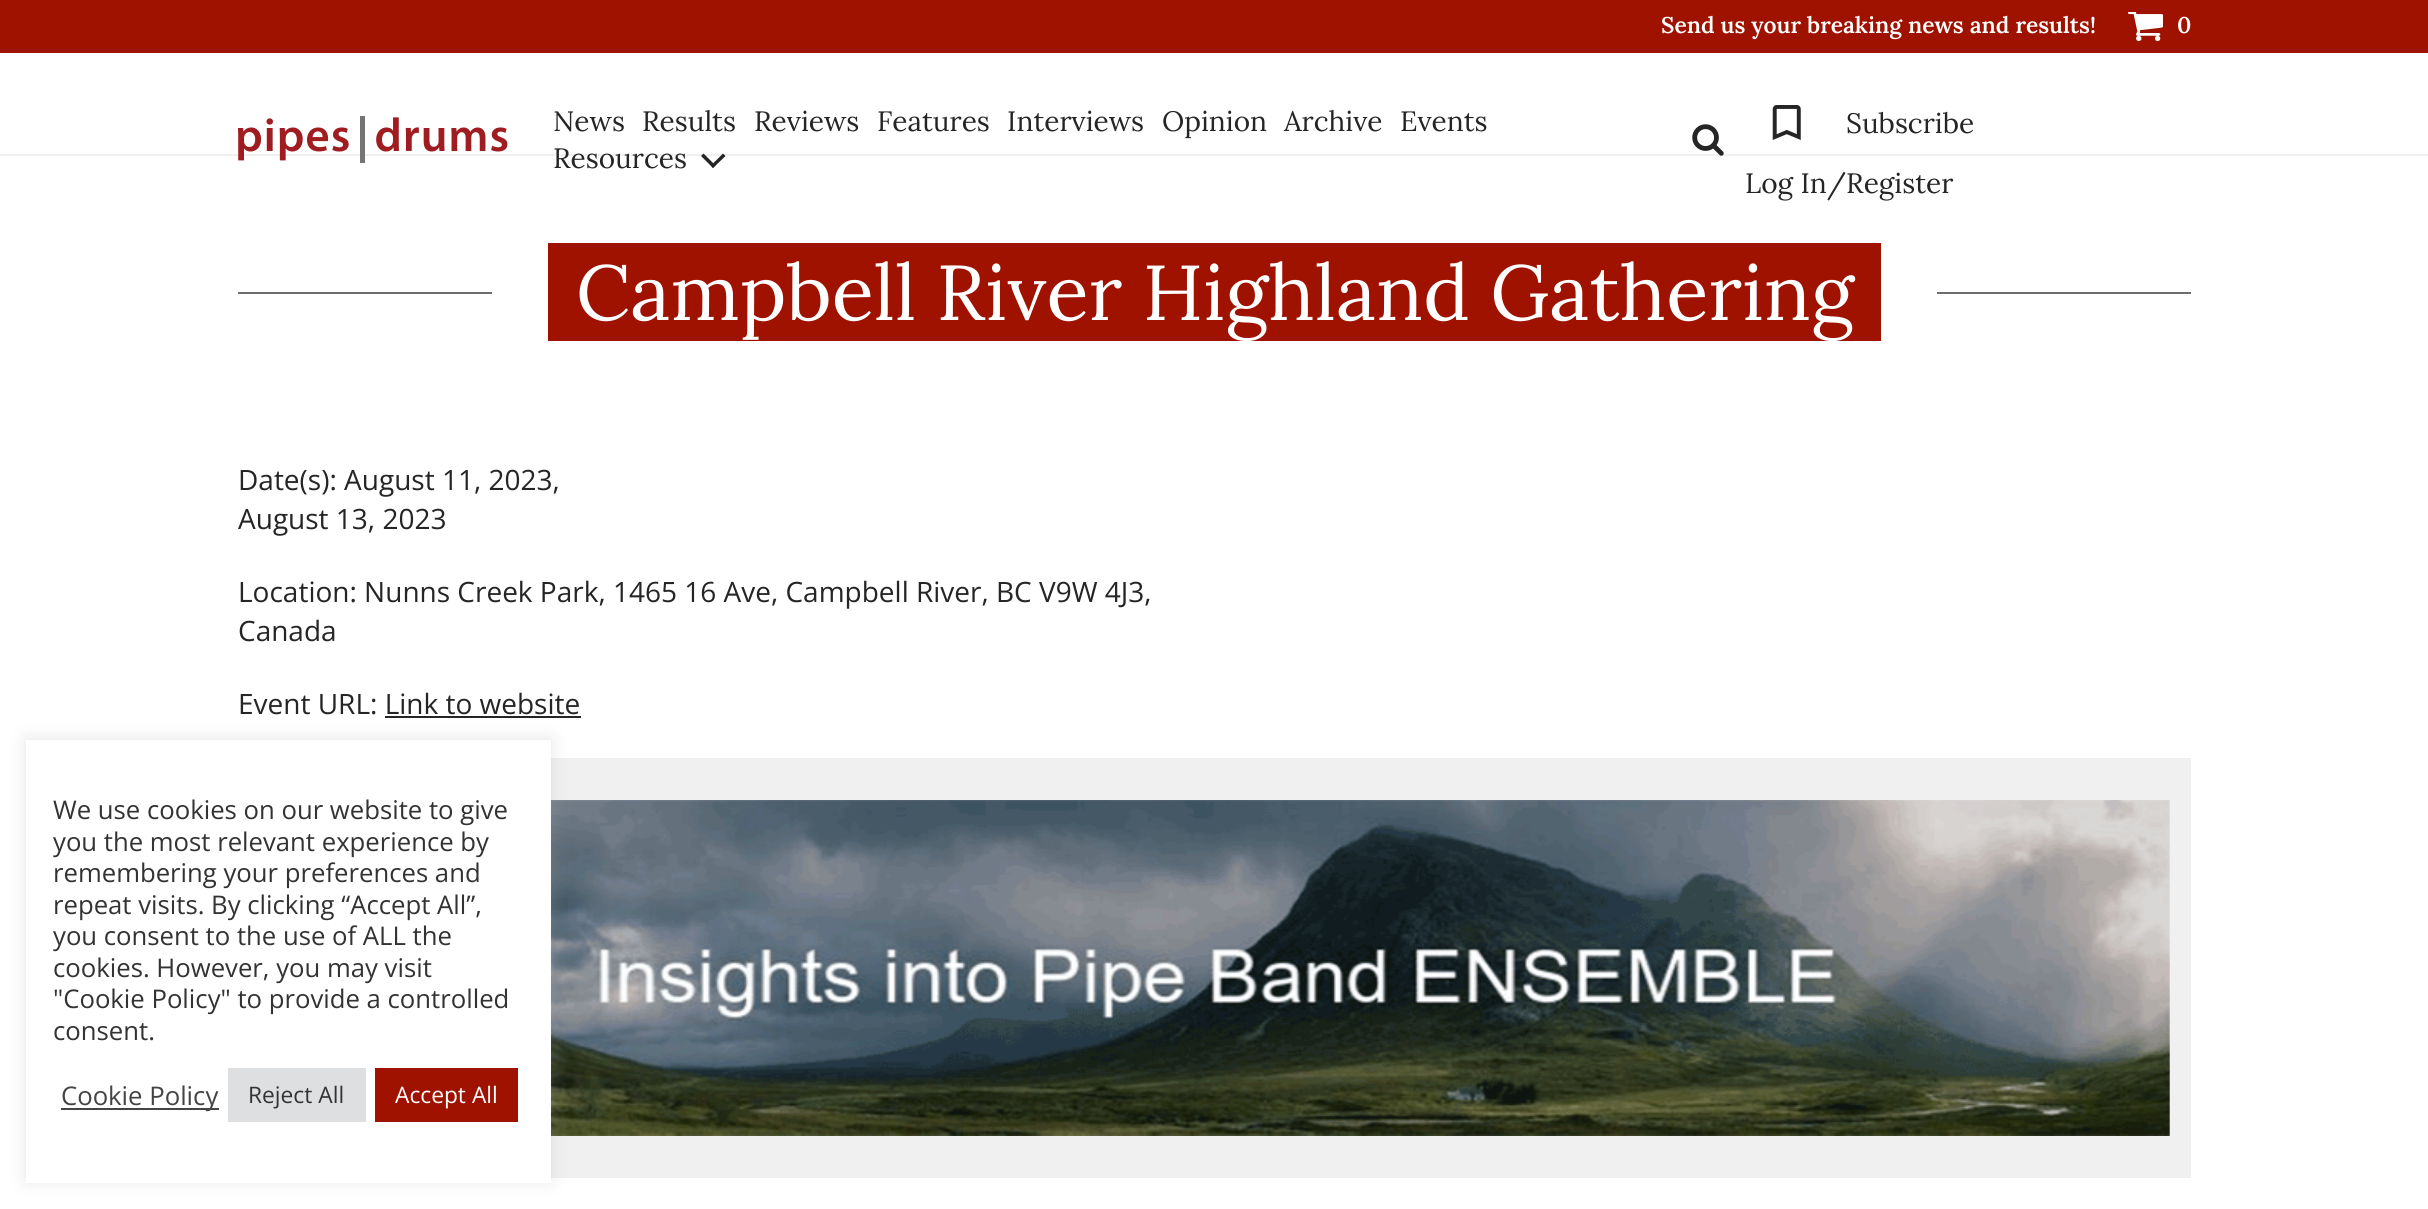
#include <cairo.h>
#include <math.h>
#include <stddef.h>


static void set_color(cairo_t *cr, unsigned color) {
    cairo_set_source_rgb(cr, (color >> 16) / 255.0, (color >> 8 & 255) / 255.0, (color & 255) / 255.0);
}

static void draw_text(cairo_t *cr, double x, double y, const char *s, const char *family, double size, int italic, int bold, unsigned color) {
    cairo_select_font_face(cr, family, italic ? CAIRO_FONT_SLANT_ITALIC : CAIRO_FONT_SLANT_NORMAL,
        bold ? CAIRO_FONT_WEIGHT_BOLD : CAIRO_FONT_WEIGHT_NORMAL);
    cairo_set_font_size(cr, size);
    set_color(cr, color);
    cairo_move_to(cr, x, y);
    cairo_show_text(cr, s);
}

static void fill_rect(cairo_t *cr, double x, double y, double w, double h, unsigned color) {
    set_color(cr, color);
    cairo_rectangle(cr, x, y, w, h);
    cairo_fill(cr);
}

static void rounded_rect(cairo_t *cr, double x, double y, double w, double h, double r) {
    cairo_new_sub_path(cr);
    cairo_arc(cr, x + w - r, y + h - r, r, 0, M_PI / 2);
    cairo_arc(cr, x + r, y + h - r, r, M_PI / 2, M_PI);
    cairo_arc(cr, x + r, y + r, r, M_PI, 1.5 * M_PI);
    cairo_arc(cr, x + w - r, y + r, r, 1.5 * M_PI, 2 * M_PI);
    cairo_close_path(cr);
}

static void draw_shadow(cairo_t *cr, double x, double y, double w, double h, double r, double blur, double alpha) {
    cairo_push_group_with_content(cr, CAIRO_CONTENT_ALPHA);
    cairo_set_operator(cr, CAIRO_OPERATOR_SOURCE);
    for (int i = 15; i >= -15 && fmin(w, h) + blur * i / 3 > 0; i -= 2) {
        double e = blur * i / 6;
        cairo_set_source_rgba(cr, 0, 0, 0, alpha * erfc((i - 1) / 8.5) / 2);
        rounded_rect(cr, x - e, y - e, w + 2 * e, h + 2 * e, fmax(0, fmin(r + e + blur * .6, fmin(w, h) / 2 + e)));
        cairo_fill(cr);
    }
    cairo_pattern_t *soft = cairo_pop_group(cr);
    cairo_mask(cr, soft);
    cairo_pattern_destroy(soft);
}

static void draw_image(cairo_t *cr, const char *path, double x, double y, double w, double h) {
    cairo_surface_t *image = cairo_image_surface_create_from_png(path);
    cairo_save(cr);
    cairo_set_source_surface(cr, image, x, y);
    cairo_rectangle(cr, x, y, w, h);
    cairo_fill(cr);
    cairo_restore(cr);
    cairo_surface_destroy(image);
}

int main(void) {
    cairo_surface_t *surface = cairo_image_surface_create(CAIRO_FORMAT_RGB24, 2428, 1209);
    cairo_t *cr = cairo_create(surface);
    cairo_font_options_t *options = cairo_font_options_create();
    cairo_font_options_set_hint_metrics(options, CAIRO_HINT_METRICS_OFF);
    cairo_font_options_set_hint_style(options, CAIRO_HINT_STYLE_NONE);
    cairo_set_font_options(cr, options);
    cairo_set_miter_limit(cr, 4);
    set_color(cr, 0xFFFFFF);
    cairo_paint(cr);
    fill_rect(cr, 0, 0, 2428, 53, 0x9F1200);
    draw_text(cr, 1661, 33, "Send us your breaking news and results!", "Lora SemiBold", 22.75, 0, 0, 0xFFFFFF);
    draw_image(cr, "assets/img1.png", 2128, 12, 35, 30);
    draw_text(cr, 2177, 33, "0", "Lora SemiBold", 22.75, 0, 0, 0xFFFFFF);
    fill_rect(cr, 0, 154, 2428, 2, 0xF0F0F0);
    draw_image(cr, "assets/img2.png", 238, 116, 270, 47);
    draw_text(cr, 553, 131, "News", "Lora", 28, 0, 0, 0x252525);
    draw_text(cr, 642, 131, "Results", "Lora", 28, 0, 0, 0x252525);
    draw_text(cr, 754, 131, "Reviews", "Lora", 28, 0, 0, 0x252525);
    draw_text(cr, 877, 131, "Features", "Lora", 28, 0, 0, 0x252525);
    draw_text(cr, 1007, 131, "Interviews", "Lora", 28, 0, 0, 0x252525);
    draw_text(cr, 1162, 131, "Opinion", "Lora", 28, 0, 0, 0x252525);
    draw_text(cr, 1284, 131, "Archive", "Lora", 28, 0, 0, 0x252525);
    draw_text(cr, 1400, 131, "Events", "Lora", 28, 0, 0, 0x252525);
    draw_text(cr, 553, 168, "Resources", "Lora", 28, 0, 0, 0x252525);
    cairo_new_path(cr);
    cairo_move_to(cr, 723, 153.5);
    cairo_line_to(cr, 725.5, 156);
    cairo_line_to(cr, 713, 168);
    cairo_line_to(cr, 711, 165.5);
    cairo_close_path(cr);
    cairo_fill(cr);
    cairo_new_path(cr);
    cairo_move_to(cr, 703.5, 153.5);
    cairo_line_to(cr, 715.5, 165.5);
    cairo_line_to(cr, 713, 168);
    cairo_line_to(cr, 701, 156);
    cairo_close_path(cr);
    cairo_fill(cr);
    draw_image(cr, "assets/img3.png", 1692, 124, 32, 32);
    draw_image(cr, "assets/img4.png", 1772, 105, 29, 35);
    draw_text(cr, 1846, 133, "Subscribe", "Lora", 28, 0, 0, 0x252525);
    draw_text(cr, 1745, 193, "Log In/Register", "Lora", 28, 0, 0, 0x252525);
    fill_rect(cr, 548, 243, 1333, 98, 0x9F1200);
    fill_rect(cr, 238, 292, 254, 2, 0x6D6D6D);
    draw_text(cr, 576, 320, "Campbell River Highland Gathering", "Lora", 77.75, 0, 0, 0xFFFFFF);
    fill_rect(cr, 1937, 292, 254, 2, 0x6D6D6D);
    draw_text(cr, 238, 490, "Date(s): August 11, 2023,", "Open Sans", 28, 0, 0, 0x252525);
    draw_text(cr, 238, 529, "August 13, 2023", "Open Sans", 28, 0, 0, 0x252525);
    draw_text(cr, 238, 602, "Location: Nunns Creek Park, 1465 16 Ave, Campbell River, BC V9W 4J3,", "Open Sans", 28, 0, 0, 0x252525);
    draw_text(cr, 238, 641, "Canada", "Open Sans", 28, 0, 0, 0x252525);
    draw_text(cr, 238, 714, "Event URL: Link to website", "Open Sans", 28, 0, 0, 0x252525);
    fill_rect(cr, 385, 716, 196, 2, 0x252525);
    fill_rect(cr, 551, 758, 1640, 420, 0xF0F0F0);
    draw_image(cr, "assets/img5.png", 551, 800, 1619, 336);
    set_color(cr, 0xACABAB);
    draw_shadow(cr, 26, 739, 525, 442, 0, 9, 0.3);
    fill_rect(cr, 26, 740, 525, 443, 0xFFFFFF);
    draw_text(cr, 53, 819, "We use cookies on our website to give", "Open Sans", 25.7, 0, 0, 0x333333);
    draw_text(cr, 53, 851, "you the most relevant experience by", "Open Sans", 25.7, 0, 0, 0x333333);
    draw_text(cr, 53, 882, "remembering your preferences and", "Open Sans", 25.7, 0, 0, 0x333333);
    draw_text(cr, 53, 914, "repeat visits. By clicking “Accept All”,", "Open Sans", 25.7, 0, 0, 0x333333);
    draw_text(cr, 53, 945, "you consent to the use of ALL the", "Open Sans", 25.7, 0, 0, 0x333333);
    draw_text(cr, 53, 977, "cookies. However, you may visit", "Open Sans", 25.7, 0, 0, 0x333333);
    draw_text(cr, 53, 1008, "\"Cookie Policy\" to provide a controlled", "Open Sans", 25.7, 0, 0, 0x333333);
    draw_text(cr, 53, 1040, "consent.", "Open Sans", 25.7, 0, 0, 0x333333);
    fill_rect(cr, 61, 1108, 158, 2, 0x444444);
    draw_text(cr, 61, 1105, "Cookie Policy", "Open Sans", 25.7, 0, 0, 0x444444);
    fill_rect(cr, 228, 1068, 138, 54, 0xDEDFE0);
    draw_text(cr, 248, 1103, "Reject All", "Open Sans", 22.75, 0, 0, 0x333333);
    fill_rect(cr, 375, 1068, 143, 54, 0x9F1200);
    draw_text(cr, 395, 1103, "Accept All", "Open Sans", 22.75, 0, 0, 0xFFFFFF);
    cairo_surface_write_to_png(surface, "output.png");
    cairo_font_options_destroy(options);
    cairo_destroy(cr);
    cairo_surface_destroy(surface);
    return 0;
}
